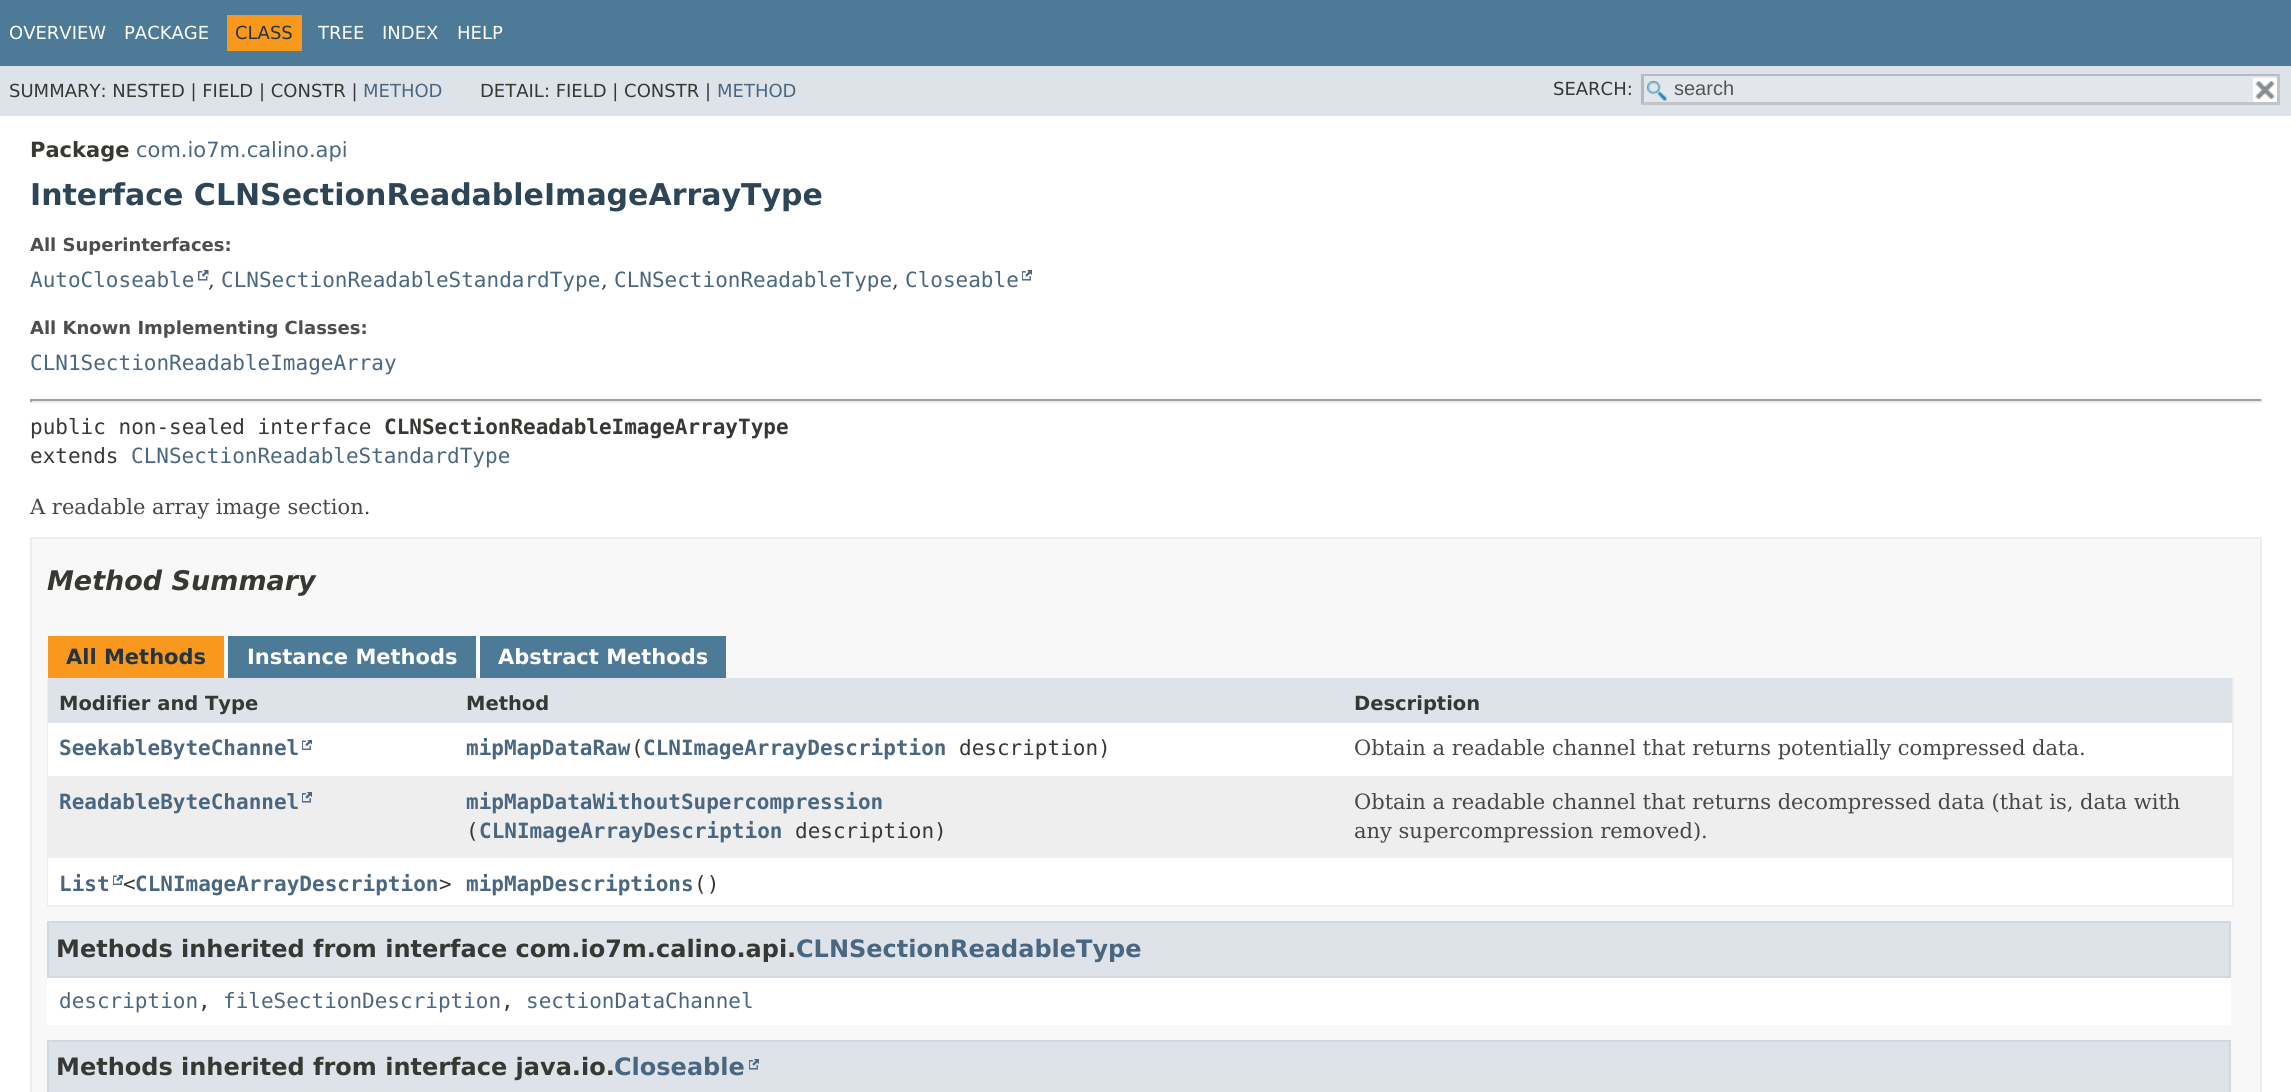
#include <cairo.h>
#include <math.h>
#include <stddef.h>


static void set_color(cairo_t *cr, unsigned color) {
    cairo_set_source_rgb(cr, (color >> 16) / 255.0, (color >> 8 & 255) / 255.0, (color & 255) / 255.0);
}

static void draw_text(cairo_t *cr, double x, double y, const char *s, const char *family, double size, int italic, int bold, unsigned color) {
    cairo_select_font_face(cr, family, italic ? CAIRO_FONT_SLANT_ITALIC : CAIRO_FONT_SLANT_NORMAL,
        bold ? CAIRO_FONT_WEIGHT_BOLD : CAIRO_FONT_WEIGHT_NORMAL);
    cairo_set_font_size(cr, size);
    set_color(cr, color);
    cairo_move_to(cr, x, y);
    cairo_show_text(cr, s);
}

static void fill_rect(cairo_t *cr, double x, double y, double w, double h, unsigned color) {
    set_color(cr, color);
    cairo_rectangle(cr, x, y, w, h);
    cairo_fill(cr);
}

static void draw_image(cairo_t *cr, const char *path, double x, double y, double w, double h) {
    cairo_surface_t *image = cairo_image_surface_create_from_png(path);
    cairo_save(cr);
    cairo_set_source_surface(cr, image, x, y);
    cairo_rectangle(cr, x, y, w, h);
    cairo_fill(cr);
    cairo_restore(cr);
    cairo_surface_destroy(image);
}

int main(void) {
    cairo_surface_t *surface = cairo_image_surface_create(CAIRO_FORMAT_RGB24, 2291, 1092);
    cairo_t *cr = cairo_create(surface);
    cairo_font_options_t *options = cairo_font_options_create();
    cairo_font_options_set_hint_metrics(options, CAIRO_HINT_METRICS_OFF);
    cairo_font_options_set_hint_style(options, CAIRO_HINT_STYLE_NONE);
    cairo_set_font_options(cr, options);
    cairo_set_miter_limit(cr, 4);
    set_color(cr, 0xFFFFFF);
    cairo_paint(cr);
    fill_rect(cr, 0, 0, 2291, 66, 0x4D7A97);
    draw_text(cr, 9, 39, "OVERVIEW", "DejaVu Sans", 18, 0, 0, 0xFFFFFF);
    draw_text(cr, 124, 39, "PACKAGE", "DejaVu Sans", 18, 0, 0, 0xFFFFFF);
    fill_rect(cr, 227, 15, 75, 36, 0xF8981D);
    draw_text(cr, 235, 39, "CLASS", "DejaVu Sans", 18, 0, 0, 0x253441);
    draw_text(cr, 318, 39, "TREE", "DejaVu Sans", 18, 0, 0, 0xFFFFFF);
    draw_text(cr, 382, 39, "INDEX", "DejaVu Sans", 18, 0, 0, 0xFFFFFF);
    draw_text(cr, 457, 39, "HELP", "DejaVu Sans", 18, 0, 0, 0xFFFFFF);
    fill_rect(cr, 0, 66, 2291, 50, 0xDEE3E9);
    draw_text(cr, 9, 97, "SUMMARY: NESTED | FIELD | CONSTR |", "DejaVu Sans", 18, 0, 0, 0x353833);
    draw_text(cr, 363, 97, "METHOD", "DejaVu Sans", 18, 0, 0, 0x4A6782);
    draw_text(cr, 480, 97, "DETAIL: FIELD | CONSTR |", "DejaVu Sans", 18, 0, 0, 0x353833);
    draw_text(cr, 717, 97, "METHOD", "DejaVu Sans", 18, 0, 0, 0x4A6782);
    draw_text(cr, 1553, 95, "SEARCH:", "DejaVu Sans", 18, 0, 0, 0x353833);
    fill_rect(cr, 1641, 74, 639, 31, 0xE3E7EB);
    draw_image(cr, "assets/img1.png", 1647, 81, 20, 20);
    set_color(cr, 0xB7B9BC);
    cairo_new_path(cr);
    cairo_move_to(cr, 1641, 74);
    cairo_line_to(cr, 2280, 74);
    cairo_line_to(cr, 2277, 76);
    cairo_line_to(cr, 1644, 76);
    cairo_close_path(cr);
    cairo_fill(cr);
    cairo_set_source_rgba(cr, 0.463, 0.463, 0.463, 0.3);
    cairo_new_path(cr);
    cairo_move_to(cr, 2280, 73.5);
    cairo_line_to(cr, 2280, 105);
    cairo_line_to(cr, 2277, 102);
    cairo_line_to(cr, 2277, 76.5);
    cairo_close_path(cr);
    cairo_fill(cr);
    cairo_new_path(cr);
    cairo_move_to(cr, 2280, 105);
    cairo_line_to(cr, 1641, 105);
    cairo_line_to(cr, 1644, 102);
    cairo_line_to(cr, 2277, 102);
    cairo_close_path(cr);
    cairo_fill(cr);
    cairo_set_source_rgba(cr, 0.31, 0.31, 0.31, 0.3);
    cairo_new_path(cr);
    cairo_move_to(cr, 1641, 105);
    cairo_line_to(cr, 1641, 73.5);
    cairo_line_to(cr, 1644, 76.5);
    cairo_line_to(cr, 1644, 102);
    cairo_close_path(cr);
    cairo_fill(cr);
    draw_text(cr, 1674, 95, "search", "Liberation Sans", 20, 0, 0, 0x545454);
    fill_rect(cr, 2253, 78, 24, 24, 0xFFFFFF);
    draw_image(cr, "assets/img2.png", 2255, 81, 20, 19);
    draw_text(cr, 30, 157, "Package", "DejaVu Sans", 21, 0, 1, 0x353833);
    draw_text(cr, 136, 157, "com.io7m.calino.api", "DejaVu Sans", 21, 0, 0, 0x4A6782);
    draw_text(cr, 30, 205, "Interface CLNSectionReadableImageArrayType", "DejaVu Sans", 30, 0, 1, 0x2C4557);
    draw_text(cr, 30, 251, "All Superinterfaces:", "DejaVu Sans", 18, 0, 1, 0x4E4E4E);
    draw_text(cr, 30, 287, "AutoCloseable", "DejaVu Sans Mono", 21, 0, 0, 0x4A6782);
    draw_image(cr, "assets/img3.png", 198, 270, 11, 11);
    draw_text(cr, 208, 287, ",", "DejaVu Serif", 21, 0, 0, 0x353833);
    draw_text(cr, 221, 287, "CLNSectionReadableStandardType", "DejaVu Sans Mono", 21, 0, 0, 0x4A6782);
    draw_text(cr, 601, 287, ",", "DejaVu Serif", 21, 0, 0, 0x353833);
    draw_text(cr, 614, 287, "CLNSectionReadableType", "DejaVu Sans Mono", 21, 0, 0, 0x4A6782);
    draw_text(cr, 892, 287, ",", "DejaVu Serif", 21, 0, 0, 0x353833);
    draw_text(cr, 905, 287, "Closeable", "DejaVu Sans Mono", 21, 0, 0, 0x4A6782);
    draw_image(cr, "assets/img4.png", 1022, 270, 10, 11);
    draw_text(cr, 30, 334, "All Known Implementing Classes:", "DejaVu Sans", 18, 0, 1, 0x4E4E4E);
    draw_text(cr, 30, 370, "CLN1SectionReadableImageArray", "DejaVu Sans Mono", 21, 0, 0, 0x4A6782);
    fill_rect(cr, 30, 399, 2232, 2, 0x9F9F9F);
    fill_rect(cr, 2261, 399, 2, 3, 0xEEEEEE);
    fill_rect(cr, 30, 401, 2232, 2, 0xEEEEEE);
    fill_rect(cr, 30, 399, 2, 3, 0x9F9F9F);
    draw_text(cr, 30, 434, "public non-sealed interface", "DejaVu Sans Mono", 21, 0, 0, 0x353833);
    draw_text(cr, 384, 434, "CLNSectionReadableImageArrayType", "DejaVu Sans Mono", 21, 0, 1, 0x353833);
    draw_text(cr, 30, 463, "extends", "DejaVu Sans Mono", 21, 0, 0, 0x353833);
    draw_text(cr, 131, 463, "CLNSectionReadableStandardType", "DejaVu Sans Mono", 21, 0, 0, 0x4A6782);
    draw_text(cr, 30, 514, "A readable array image section.", "DejaVu Serif", 21, 0, 0, 0x474747);
    set_color(cr, 0xF8F8F8);
    cairo_rectangle(cr, 31, 538, 2230, 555);
    cairo_fill_preserve(cr);
    set_color(cr, 0xEDEDED);
    cairo_stroke(cr);
    draw_text(cr, 47, 590, "Method Summary", "DejaVu Sans", 27, 1, 1, 0x353833);
    fill_rect(cr, 48, 636, 176, 42, 0xF8981D);
    draw_text(cr, 66, 664, "All Methods", "DejaVu Sans", 21, 0, 1, 0x253441);
    fill_rect(cr, 228, 636, 248, 42, 0x4D7A97);
    draw_text(cr, 247, 664, "Instance Methods", "DejaVu Sans", 21, 0, 1, 0xFFFFFF);
    fill_rect(cr, 480, 636, 246, 42, 0x4D7A97);
    draw_text(cr, 498, 664, "Abstract Methods", "DejaVu Sans", 21, 0, 1, 0xFFFFFF);
    fill_rect(cr, 2232, 678, 2, 228, 0xEEEEEE);
    fill_rect(cr, 47, 905, 2187, 2, 0xEEEEEE);
    fill_rect(cr, 47, 678, 2, 228, 0xEEEEEE);
    fill_rect(cr, 48, 678, 1296, 45, 0xDEE3E9);
    draw_text(cr, 59, 710, "Modifier and Type", "DejaVu Sans", 19.5, 0, 1, 0x353833);
    draw_text(cr, 466, 710, "Method", "DejaVu Sans", 19.5, 0, 1, 0x353833);
    fill_rect(cr, 1344, 678, 888, 45, 0xDEE3E9);
    draw_text(cr, 1354, 710, "Description", "DejaVu Sans", 19.5, 0, 1, 0x353833);
    fill_rect(cr, 48, 723, 1296, 53, 0xFFFFFF);
    draw_text(cr, 59, 755, "SeekableByteChannel", "DejaVu Sans Mono", 21, 0, 1, 0x4A6782);
    draw_image(cr, "assets/img5.png", 302, 740, 10, 10);
    draw_text(cr, 466, 755, "mipMapDataRaw CLNImageArrayDescription", "DejaVu Sans Mono", 21, 0, 1, 0x4A6782);
    draw_text(cr, 631, 755, "(", "DejaVu Sans Mono", 21, 0, 0, 0x353833);
    draw_text(cr, 959, 755, "description)", "DejaVu Sans Mono", 21, 0, 0, 0x353833);
    fill_rect(cr, 1344, 723, 888, 53, 0xFFFFFF);
    draw_text(cr, 1354, 755, "Obtain a readable channel that returns potentially compressed data.", "DejaVu Serif", 21, 0, 0, 0x474747);
    fill_rect(cr, 49, 776, 1295, 82, 0xEEEEEF);
    draw_text(cr, 59, 809, "ReadableByteChannel", "DejaVu Sans Mono", 21, 0, 1, 0x4A6782);
    draw_image(cr, "assets/img6.png", 302, 792, 10, 11);
    draw_text(cr, 466, 809, "mipMapDataWithoutSupercompression", "DejaVu Sans Mono", 21, 0, 1, 0x4A6782);
    draw_text(cr, 466, 838, "(", "DejaVu Sans Mono", 21, 0, 0, 0x353833);
    draw_text(cr, 479, 838, "CLNImageArrayDescription", "DejaVu Sans Mono", 21, 0, 1, 0x4A6782);
    draw_text(cr, 795, 838, "description)", "DejaVu Sans Mono", 21, 0, 0, 0x353833);
    fill_rect(cr, 1344, 776, 888, 82, 0xEEEEEF);
    draw_text(cr, 1354, 809, "Obtain a readable channel that returns decompressed data (that is, data with", "DejaVu Serif", 21, 0, 0, 0x474747);
    draw_text(cr, 1354, 838, "any supercompression removed).", "DejaVu Serif", 21, 0, 0, 0x474747);
    fill_rect(cr, 48, 858, 1296, 47, 0xFFFFFF);
    draw_text(cr, 59, 891, "List", "DejaVu Sans Mono", 21, 0, 1, 0x4A6782);
    draw_image(cr, "assets/img5.png", 113, 875, 10, 10);
    draw_text(cr, 123, 891, "<", "DejaVu Sans Mono", 21, 0, 0, 0x353833);
    draw_text(cr, 135, 891, "CLNImageArrayDescription", "DejaVu Sans Mono", 21, 0, 1, 0x4A6782);
    draw_text(cr, 439, 891, ">", "DejaVu Sans Mono", 21, 0, 0, 0x353833);
    draw_text(cr, 466, 891, "mipMapDescriptions", "DejaVu Sans Mono", 21, 0, 1, 0x4A6782);
    draw_text(cr, 694, 891, "()", "DejaVu Sans Mono", 21, 0, 0, 0x353833);
    fill_rect(cr, 1344, 858, 888, 47, 0xFFFFFF);
    fill_rect(cr, 47, 978, 2184, 47, 0xFFFFFF);
    set_color(cr, 0xDEE3E9);
    cairo_rectangle(cr, 48, 922, 2182, 55);
    cairo_fill_preserve(cr);
    set_color(cr, 0xD0D9E0);
    cairo_stroke(cr);
    draw_text(cr, 56, 957, "Methods inherited from interface com.io7m.calino.api.", "DejaVu Sans", 24, 0, 1, 0x353833);
    draw_text(cr, 796, 957, "CLNSectionReadableType", "DejaVu Sans", 24, 0, 1, 0x4A6782);
    draw_text(cr, 59, 1008, "description", "DejaVu Sans Mono", 21, 0, 0, 0x4A6782);
    draw_text(cr, 198, 1008, ",", "DejaVu Sans Mono", 21, 0, 0, 0x353833);
    draw_text(cr, 223, 1008, "fileSectionDescription", "DejaVu Sans Mono", 21, 0, 0, 0x4A6782);
    draw_text(cr, 501, 1008, ",", "DejaVu Sans Mono", 21, 0, 0, 0x353833);
    draw_text(cr, 526, 1008, "sectionDataChannel", "DejaVu Sans Mono", 21, 0, 0, 0x4A6782);
    set_color(cr, 0xDEE3E9);
    cairo_rectangle(cr, 48, 1041, 2182, 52);
    cairo_fill_preserve(cr);
    set_color(cr, 0xD0D9E0);
    cairo_stroke(cr);
    draw_text(cr, 56, 1075, "Methods inherited from interface java.io.", "DejaVu Sans", 24, 0, 1, 0x353833);
    draw_text(cr, 614, 1075, "Closeable", "DejaVu Sans", 24, 0, 1, 0x4A6782);
    draw_image(cr, "assets/img7.png", 749, 1059, 10, 11);
    cairo_surface_write_to_png(surface, "output.png");
    cairo_font_options_destroy(options);
    cairo_destroy(cr);
    cairo_surface_destroy(surface);
    return 0;
}
